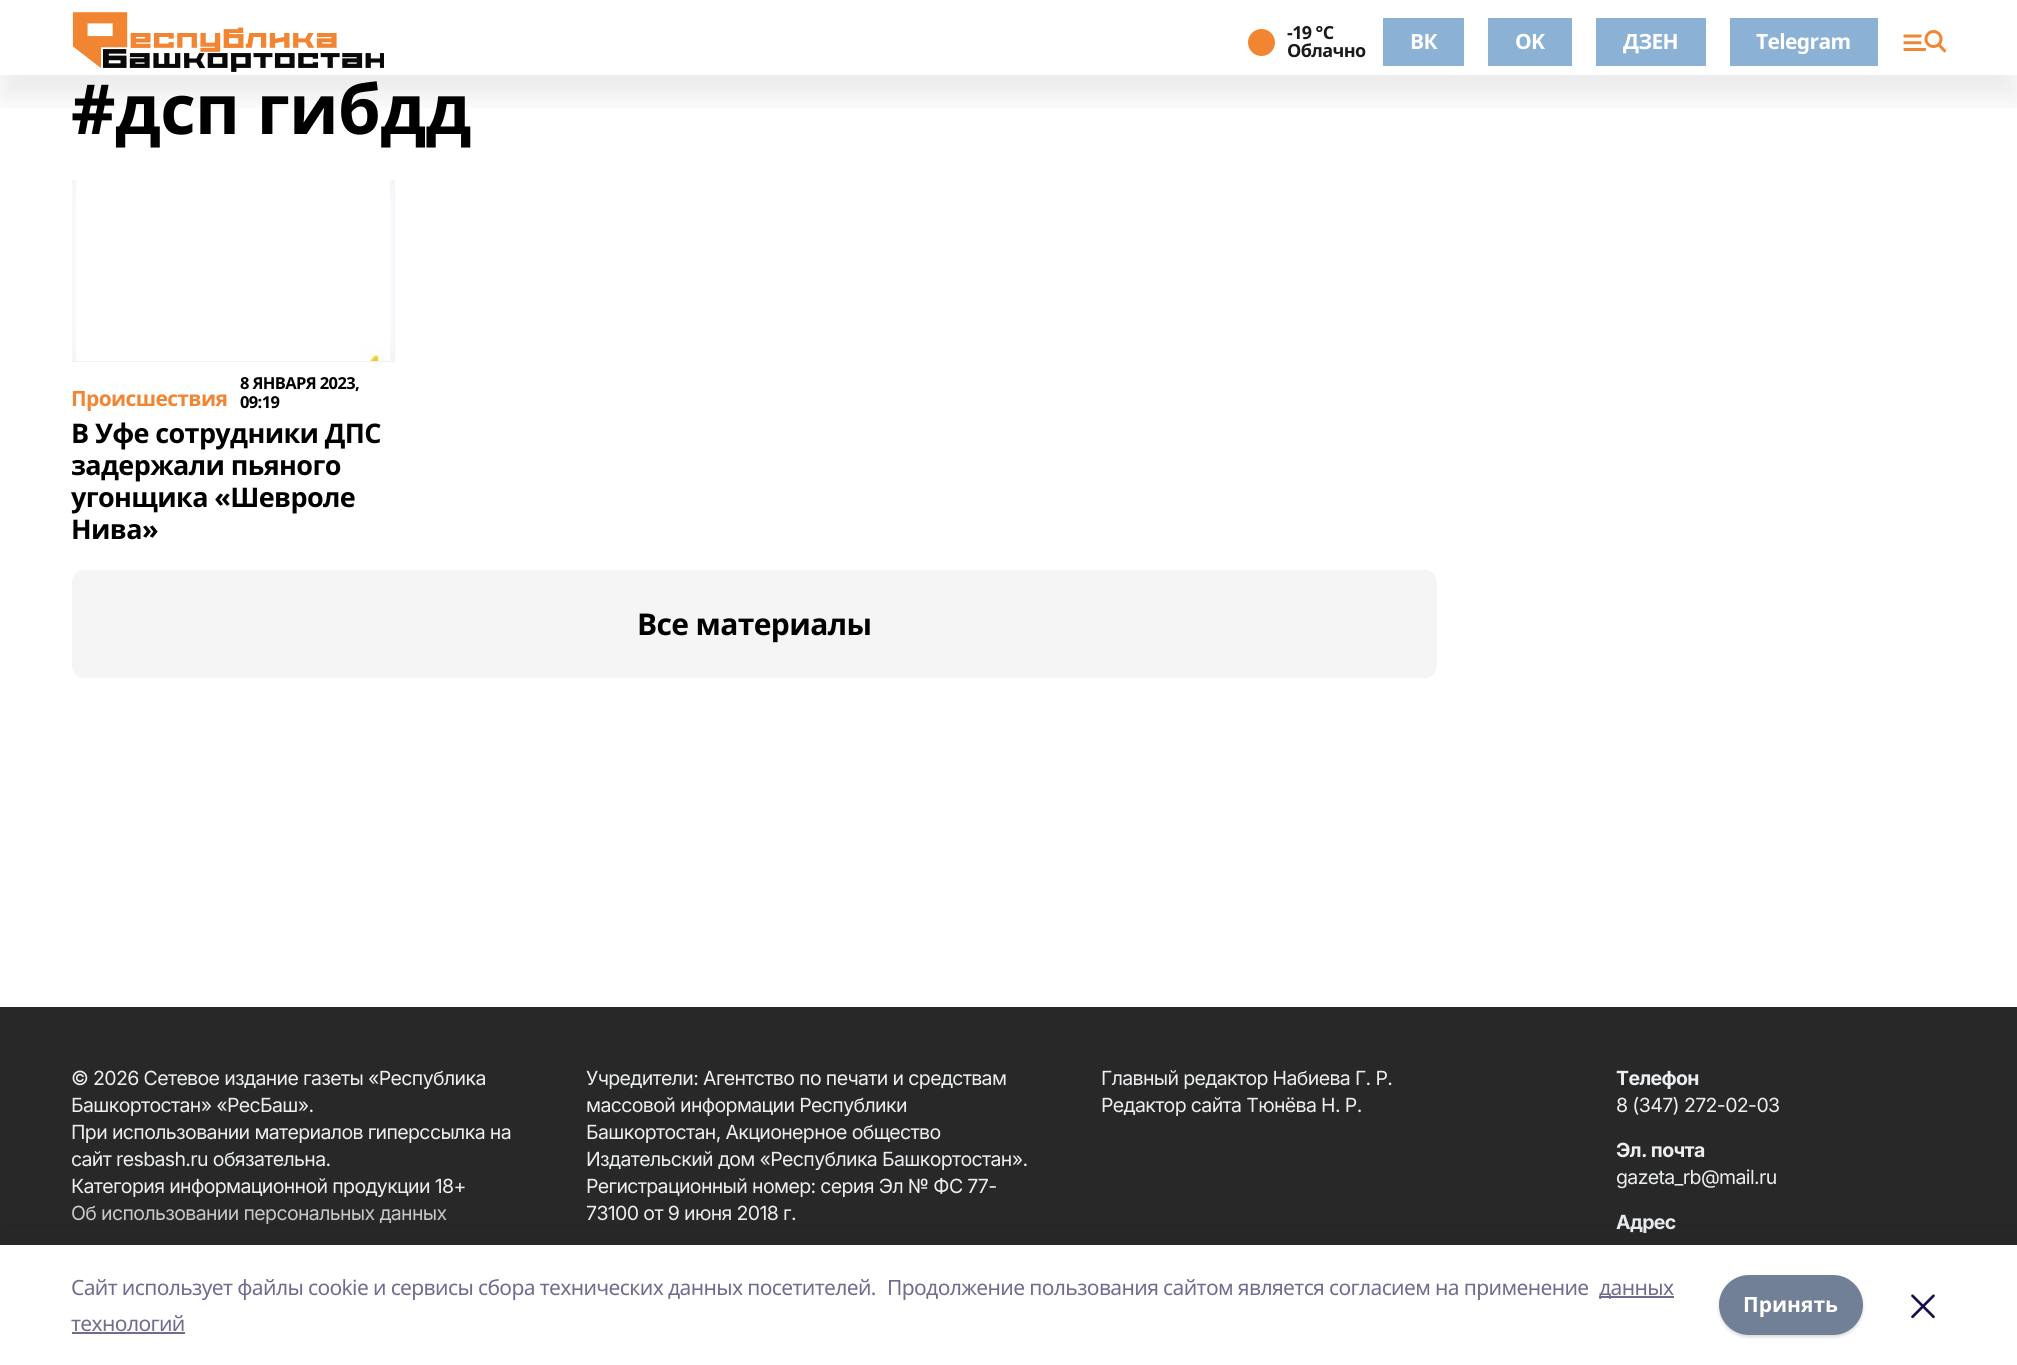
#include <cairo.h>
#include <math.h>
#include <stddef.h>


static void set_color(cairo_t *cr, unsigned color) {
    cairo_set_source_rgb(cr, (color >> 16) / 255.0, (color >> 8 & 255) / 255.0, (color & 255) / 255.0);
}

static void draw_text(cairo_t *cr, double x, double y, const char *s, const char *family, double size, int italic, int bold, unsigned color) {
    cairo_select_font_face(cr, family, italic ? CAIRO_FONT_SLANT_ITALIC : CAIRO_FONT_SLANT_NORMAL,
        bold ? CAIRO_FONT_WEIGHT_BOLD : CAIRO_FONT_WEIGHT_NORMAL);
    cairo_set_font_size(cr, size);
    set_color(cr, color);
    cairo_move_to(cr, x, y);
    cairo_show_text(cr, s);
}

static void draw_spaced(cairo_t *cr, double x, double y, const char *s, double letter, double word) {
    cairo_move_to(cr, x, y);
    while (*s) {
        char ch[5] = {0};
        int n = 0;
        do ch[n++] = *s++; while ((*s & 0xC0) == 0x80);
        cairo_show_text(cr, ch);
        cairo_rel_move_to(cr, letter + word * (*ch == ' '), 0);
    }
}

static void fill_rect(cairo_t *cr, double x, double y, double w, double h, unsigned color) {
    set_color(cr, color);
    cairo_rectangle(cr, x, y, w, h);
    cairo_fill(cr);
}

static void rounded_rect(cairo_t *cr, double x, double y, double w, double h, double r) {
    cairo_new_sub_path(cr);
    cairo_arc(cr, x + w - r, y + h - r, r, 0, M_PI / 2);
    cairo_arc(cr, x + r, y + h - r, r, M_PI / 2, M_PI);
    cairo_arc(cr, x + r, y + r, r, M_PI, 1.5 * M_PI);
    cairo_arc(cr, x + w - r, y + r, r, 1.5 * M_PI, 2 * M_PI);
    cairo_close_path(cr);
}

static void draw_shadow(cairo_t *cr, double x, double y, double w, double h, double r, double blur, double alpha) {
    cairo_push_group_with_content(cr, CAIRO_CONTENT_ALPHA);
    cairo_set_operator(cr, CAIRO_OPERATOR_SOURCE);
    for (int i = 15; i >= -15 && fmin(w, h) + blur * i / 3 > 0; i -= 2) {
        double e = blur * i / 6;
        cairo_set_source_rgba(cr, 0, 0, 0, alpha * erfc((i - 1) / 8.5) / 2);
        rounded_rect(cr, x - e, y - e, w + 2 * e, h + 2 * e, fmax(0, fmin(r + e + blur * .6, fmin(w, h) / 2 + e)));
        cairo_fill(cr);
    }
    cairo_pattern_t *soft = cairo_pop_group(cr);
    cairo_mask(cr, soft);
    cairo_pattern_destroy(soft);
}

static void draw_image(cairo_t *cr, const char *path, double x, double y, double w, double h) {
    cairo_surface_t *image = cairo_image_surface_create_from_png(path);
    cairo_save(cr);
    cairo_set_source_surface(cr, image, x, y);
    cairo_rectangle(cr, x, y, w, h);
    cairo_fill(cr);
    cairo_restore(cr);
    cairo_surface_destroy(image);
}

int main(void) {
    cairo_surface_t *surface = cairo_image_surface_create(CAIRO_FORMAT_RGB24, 2017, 1365);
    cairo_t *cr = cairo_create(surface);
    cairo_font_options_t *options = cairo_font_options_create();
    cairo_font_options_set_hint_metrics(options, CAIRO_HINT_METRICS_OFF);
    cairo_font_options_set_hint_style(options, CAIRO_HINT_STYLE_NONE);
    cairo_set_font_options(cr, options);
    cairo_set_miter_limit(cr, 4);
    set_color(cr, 0xFFFFFF);
    cairo_paint(cr);
    cairo_save(cr);
    cairo_rectangle(cr, 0, 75, 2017, 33);
    cairo_clip(cr);
    set_color(cr, 0x000000);
    draw_shadow(cr, 0, 23, 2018, 75, 0, 15, 0.08);
    cairo_restore(cr);
    draw_image(cr, "assets/img1.png", 72, 12, 312, 60);
    set_color(cr, 0xF18532);
    cairo_arc(cr, 1261.5, 42.5, 13.5, 0, 2 * M_PI);
    cairo_fill(cr);
    cairo_select_font_face(cr, "Noto Sans", CAIRO_FONT_SLANT_NORMAL, CAIRO_FONT_WEIGHT_BOLD);
    cairo_set_font_size(cr, 18);
    set_color(cr, 0x1A1A1A);
    draw_spaced(cr, 1287, 39, "-19 °С", -0.63, 0);
    draw_spaced(cr, 1287, 57, "Облачно", -0.63, 0);
    fill_rect(cr, 1383, 18, 81, 48, 0x8BB1D4);
    cairo_set_font_size(cr, 21);
    set_color(cr, 0xFFFFFF);
    draw_spaced(cr, 1410, 49, "ВК", -0.63, 0);
    fill_rect(cr, 1488, 18, 84, 48, 0x8BB1D4);
    set_color(cr, 0xFFFFFF);
    draw_spaced(cr, 1515, 49, "OK", -0.63, 0);
    fill_rect(cr, 1596, 18, 110, 48, 0x8BB1D4);
    set_color(cr, 0xFFFFFF);
    draw_spaced(cr, 1623, 49, "ДЗЕН", -0.63, 0);
    fill_rect(cr, 1730, 18, 148, 48, 0x8BB1D4);
    set_color(cr, 0xFFFFFF);
    draw_spaced(cr, 1756, 49, "Telegram", -0.63, 0);
    draw_image(cr, "assets/img2.png", 1903, 30, 44, 23);
    cairo_set_font_size(cr, 69);
    set_color(cr, 0x000000);
    draw_spaced(cr, 71, 134, "#дсп гибдд", -0.63, 0);
    fill_rect(cr, 72, 180, 323, 182, 0xEDF2F7);
    draw_image(cr, "assets/img3.png", 72, 180, 323, 181);
    draw_image(cr, "assets/img4.png", 76, 180, 314, 181);
    cairo_set_font_size(cr, 21);
    set_color(cr, 0xF18532);
    draw_spaced(cr, 71, 406, "Происшествия", -0.63, 0);
    cairo_set_font_size(cr, 16.5);
    set_color(cr, 0x000000);
    draw_spaced(cr, 240, 389, "8 ЯНВАРЯ 2023,", -0.63, 0);
    draw_spaced(cr, 240, 408, "09:19", -0.63, 0);
    cairo_set_font_size(cr, 27);
    draw_spaced(cr, 71, 443, "В Уфе сотрудники ДПС", -0.63, 0);
    draw_spaced(cr, 71, 475, "задержали пьяного", -0.63, 0);
    draw_spaced(cr, 71, 507, "угонщика «Шевроле", -0.63, 0);
    draw_spaced(cr, 71, 539, "Нива»", -0.63, 0);
    set_color(cr, 0xF5F5F5);
    rounded_rect(cr, 72, 570, 1365, 108, 12);
    cairo_fill(cr);
    cairo_set_font_size(cr, 30);
    set_color(cr, 0x000000);
    draw_spaced(cr, 637, 635, "Все материалы", -0.63, 0);
    fill_rect(cr, 0, 1007, 2017, 238, 0x282828);
    cairo_select_font_face(cr, "Inter", CAIRO_FONT_SLANT_NORMAL, CAIRO_FONT_WEIGHT_NORMAL);
    cairo_set_font_size(cr, 19.5);
    set_color(cr, 0xECEFF1);
    draw_spaced(cr, 71, 1085, "© 2026 Сетевое издание газеты «Республика", -0.63, 0);
    draw_spaced(cr, 71, 1112, "Башкортостан» «РесБаш».", -0.63, 0);
    draw_spaced(cr, 71, 1139, "При использовании материалов гиперссылка на", -0.63, 0);
    draw_spaced(cr, 71, 1166, "сайт resbash.ru обязательна.", -0.63, 0);
    draw_spaced(cr, 71, 1193, "Категория информационной продукции 18+", -0.63, 0);
    set_color(cr, 0xC9C9C9);
    draw_spaced(cr, 71, 1220, "Об использовании персональных данных", -0.63, 0);
    set_color(cr, 0xECEFF1);
    draw_spaced(cr, 586, 1085, "Учредители: Агентство по печати и средствам", -0.63, 0);
    draw_spaced(cr, 586, 1112, "массовой информации Республики", -0.63, 0);
    draw_spaced(cr, 586, 1139, "Башкортостан, Акционерное общество", -0.63, 0);
    draw_spaced(cr, 586, 1166, "Издательский дом «Республика Башкортостан».", -0.63, 0);
    draw_spaced(cr, 586, 1193, "Регистрационный номер: серия Эл № ФС 77-", -0.63, 0);
    draw_spaced(cr, 586, 1220, "73100 от 9 июня 2018 г.", -0.63, 0);
    draw_spaced(cr, 1101, 1085, "Главный редактор Набиева Г. Р.", -0.63, 0);
    draw_spaced(cr, 1101, 1112, "Редактор сайта Тюнёва Н. Р.", -0.63, 0);
    cairo_select_font_face(cr, "Inter", CAIRO_FONT_SLANT_NORMAL, CAIRO_FONT_WEIGHT_BOLD);
    draw_spaced(cr, 1616, 1085, "Телефон", -0.63, 0);
    cairo_select_font_face(cr, "Inter", CAIRO_FONT_SLANT_NORMAL, CAIRO_FONT_WEIGHT_NORMAL);
    draw_spaced(cr, 1616, 1112, "8 (347) 272-02-03", -0.63, 0);
    cairo_select_font_face(cr, "Inter", CAIRO_FONT_SLANT_NORMAL, CAIRO_FONT_WEIGHT_BOLD);
    draw_spaced(cr, 1616, 1157, "Эл. почта", -0.63, 0);
    cairo_select_font_face(cr, "Inter", CAIRO_FONT_SLANT_NORMAL, CAIRO_FONT_WEIGHT_NORMAL);
    draw_spaced(cr, 1616, 1184, "gazeta_rb@mail.ru", -0.63, 0);
    cairo_select_font_face(cr, "Inter", CAIRO_FONT_SLANT_NORMAL, CAIRO_FONT_WEIGHT_BOLD);
    draw_spaced(cr, 1616, 1229, "Адрес", -0.63, 0);
    set_color(cr, 0x14142B);
    draw_shadow(cr, 0, 1236, 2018, 120, 0, 17, 0.08);
    fill_rect(cr, 0, 1245, 2017, 120, 0xFFFFFF);
    cairo_select_font_face(cr, "Noto Sans", CAIRO_FONT_SLANT_NORMAL, CAIRO_FONT_WEIGHT_NORMAL);
    cairo_set_font_size(cr, 21);
    set_color(cr, 0x6F6C90);
    draw_spaced(cr, 71, 1295, "Cайт использует файлы cookie и сервисы сбора технических данных посетителей.", -0.63, 0);
    draw_spaced(cr, 887, 1295, "Продолжение пользования сайтом является согласием на применение", -0.63, 0);
    fill_rect(cr, 1599, 1296, 75, 2, 0x6F6C90);
    draw_spaced(cr, 1599, 1295, "данных", -0.63, 0);
    draw_spaced(cr, 71, 1331, "технологий", -0.63, 0);
    fill_rect(cr, 72, 1332, 113, 2, 0x6F6C90);
    set_color(cr, 0x000000);
    draw_shadow(cr, 1719, 1277, 144, 60, 30, 1.5, 0.06);
    draw_shadow(cr, 1719, 1277, 144, 60, 30, 2, 0.1);
    set_color(cr, 0x718096);
    rounded_rect(cr, 1719, 1275, 144, 60, 30);
    cairo_fill(cr);
    draw_text(cr, 1743, 1312, "Принять", "Noto Sans", 21, 0, 1, 0xFFFFFF);
    draw_image(cr, "assets/img5.png", 1911, 1294, 24, 25);
    cairo_surface_write_to_png(surface, "output.png");
    cairo_font_options_destroy(options);
    cairo_destroy(cr);
    cairo_surface_destroy(surface);
    return 0;
}
